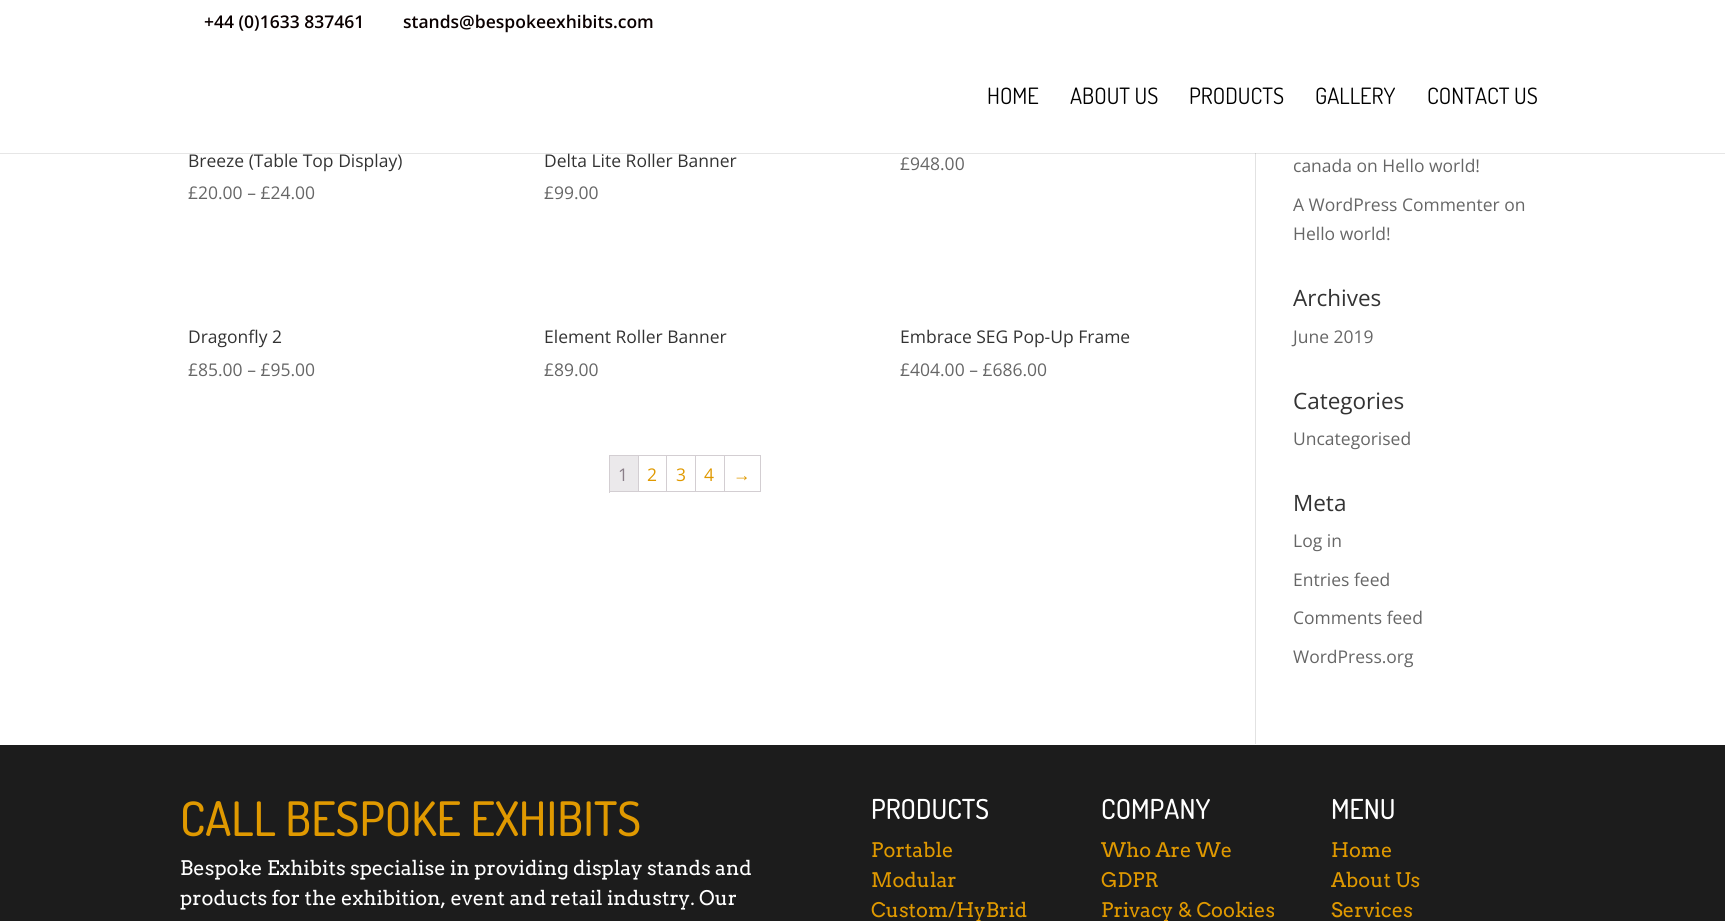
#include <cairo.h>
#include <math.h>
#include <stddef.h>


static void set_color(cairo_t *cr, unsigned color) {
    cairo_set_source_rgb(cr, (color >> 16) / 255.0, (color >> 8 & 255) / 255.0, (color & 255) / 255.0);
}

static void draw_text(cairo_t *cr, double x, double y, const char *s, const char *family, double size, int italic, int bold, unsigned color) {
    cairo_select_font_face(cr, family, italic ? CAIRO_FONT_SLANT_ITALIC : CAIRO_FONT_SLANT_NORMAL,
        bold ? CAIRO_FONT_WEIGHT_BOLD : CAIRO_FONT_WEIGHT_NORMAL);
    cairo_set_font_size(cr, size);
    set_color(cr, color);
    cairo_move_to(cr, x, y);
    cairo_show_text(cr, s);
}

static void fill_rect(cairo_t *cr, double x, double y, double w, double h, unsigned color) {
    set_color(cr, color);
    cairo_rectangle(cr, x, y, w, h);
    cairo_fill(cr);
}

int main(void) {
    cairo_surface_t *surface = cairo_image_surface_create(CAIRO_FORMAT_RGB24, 1725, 921);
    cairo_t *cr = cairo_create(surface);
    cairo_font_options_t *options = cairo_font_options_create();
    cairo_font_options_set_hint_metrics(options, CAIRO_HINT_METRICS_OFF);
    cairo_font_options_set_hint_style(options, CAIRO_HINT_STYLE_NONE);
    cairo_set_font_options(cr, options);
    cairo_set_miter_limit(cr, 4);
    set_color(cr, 0xFFFFFF);
    cairo_paint(cr);
    draw_text(cr, 204, 28, "+44 (0)1633 837461", "Open Sans SemiBold", 17.5, 0, 0, 0x0A0000);
    draw_text(cr, 403, 28, "stands@bespokeexhibits.com", "Open Sans SemiBold", 17.5, 0, 0, 0x0A0000);
    fill_rect(cr, 1255, 153, 1, 591, 0xE2E2E2);
    cairo_set_source_rgba(cr, 0, 0, 0, 0.1);
    cairo_rectangle(cr, 0, 153, 1725, 1);
    cairo_fill(cr);
    draw_text(cr, 987, 104, "HOME", "Dosis", 22.5, 0, 0, 0x000000);
    draw_text(cr, 1070, 104, "ABOUT US", "Dosis", 22.5, 0, 0, 0x000000);
    draw_text(cr, 1189, 104, "PRODUCTS", "Dosis", 22.5, 0, 0, 0x000000);
    draw_text(cr, 1315, 104, "GALLERY", "Dosis", 22.5, 0, 0, 0x000000);
    draw_text(cr, 1427, 104, "CONTACT US", "Dosis", 22.5, 0, 0, 0x000000);
    draw_text(cr, 188, 167, "Breeze (Table Top Display)", "Open Sans", 17.5, 0, 0, 0x333333);
    draw_text(cr, 188, 199, "£20.00 – £24.00", "Open Sans", 17.5, 0, 0, 0x666666);
    draw_text(cr, 544, 167, "Delta Lite Roller Banner", "Open Sans", 17.5, 0, 0, 0x333333);
    draw_text(cr, 544, 199, "£99.00", "Open Sans", 17.5, 0, 0, 0x666666);
    draw_text(cr, 900, 170, "£948.00", "Open Sans", 17.5, 0, 0, 0x666666);
    draw_text(cr, 188, 343, "Dragonfly 2", "Open Sans", 17.5, 0, 0, 0x333333);
    draw_text(cr, 188, 376, "£85.00 – £95.00", "Open Sans", 17.5, 0, 0, 0x666666);
    draw_text(cr, 544, 343, "Element Roller Banner", "Open Sans", 17.5, 0, 0, 0x333333);
    draw_text(cr, 544, 376, "£89.00", "Open Sans", 17.5, 0, 0, 0x666666);
    draw_text(cr, 900, 343, "Embrace SEG Pop-Up Frame", "Open Sans", 17.5, 0, 0, 0x333333);
    draw_text(cr, 900, 376, "£404.00 – £686.00", "Open Sans", 17.5, 0, 0, 0x666666);
    fill_rect(cr, 609, 455, 152, 1, 0xD3CED2);
    fill_rect(cr, 609, 491, 152, 1, 0xD3CED2);
    fill_rect(cr, 609, 455, 1, 38, 0xD3CED2);
    fill_rect(cr, 638, 456, 1, 35, 0xD3CED2);
    fill_rect(cr, 610, 456, 28, 35, 0xEBE9EB);
    draw_text(cr, 618, 481, "1", "Open Sans", 17.5, 0, 0, 0x8A7E88);
    fill_rect(cr, 666, 456, 1, 35, 0xD3CED2);
    draw_text(cr, 647, 481, "2", "Open Sans", 17.5, 0, 0, 0xE09900);
    fill_rect(cr, 695, 456, 1, 35, 0xD3CED2);
    draw_text(cr, 676, 481, "3", "Open Sans", 17.5, 0, 0, 0xE09900);
    fill_rect(cr, 724, 456, 1, 35, 0xD3CED2);
    draw_text(cr, 704, 481, "4", "Open Sans", 17.5, 0, 0, 0xE09900);
    fill_rect(cr, 760, 456, 1, 35, 0xD3CED2);
    draw_text(cr, 733, 481, "→", "Liberation Sans", 17.5, 0, 0, 0xE09900);
    draw_text(cr, 1293, 172, "canada on Hello world!", "Open Sans", 17.5, 0, 0, 0x666666);
    draw_text(cr, 1293, 211, "A WordPress Commenter on", "Open Sans", 17.5, 0, 0, 0x666666);
    draw_text(cr, 1293, 240, "Hello world!", "Open Sans", 17.5, 0, 0, 0x666666);
    draw_text(cr, 1293, 306, "Archives", "Open Sans", 22.5, 0, 0, 0x333333);
    draw_text(cr, 1293, 343, "June 2019", "Open Sans", 17.5, 0, 0, 0x666666);
    draw_text(cr, 1293, 409, "Categories", "Open Sans", 22.5, 0, 0, 0x333333);
    draw_text(cr, 1293, 445, "Uncategorised", "Open Sans", 17.5, 0, 0, 0x666666);
    draw_text(cr, 1293, 511, "Meta", "Open Sans", 22.5, 0, 0, 0x333333);
    draw_text(cr, 1293, 547, "Log in", "Open Sans", 17.5, 0, 0, 0x666666);
    draw_text(cr, 1293, 586, "Entries feed", "Open Sans", 17.5, 0, 0, 0x666666);
    draw_text(cr, 1293, 624, "Comments feed", "Open Sans", 17.5, 0, 0, 0x666666);
    draw_text(cr, 1293, 663, "WordPress.org", "Open Sans", 17.5, 0, 0, 0x666666);
    fill_rect(cr, 0, 745, 1725, 176, 0x1C1C1C);
    draw_text(cr, 180, 836, "CALL BESPOKE EXHIBITS", "Dosis Medium", 47.5, 0, 0, 0xE09900);
    draw_text(cr, 180, 875, "Bespoke Exhibits specialise in providing display stands and", "Arvo", 20, 0, 0, 0xFFFFFF);
    draw_text(cr, 180, 905, "products for the exhibition, event and retail industry. Our", "Arvo", 20, 0, 0, 0xFFFFFF);
    draw_text(cr, 871, 819, "PRODUCTS", "Dosis Medium", 27.5, 0, 0, 0xFFFFFF);
    draw_text(cr, 871, 857, "Portable", "Arvo", 20, 0, 0, 0xE09900);
    draw_text(cr, 871, 887, "Modular", "Arvo", 20, 0, 0, 0xE09900);
    draw_text(cr, 871, 917, "Custom/HyBrid", "Arvo", 20, 0, 0, 0xE09900);
    draw_text(cr, 1101, 819, "COMPANY", "Dosis Medium", 27.5, 0, 0, 0xFFFFFF);
    draw_text(cr, 1101, 857, "Who Are We", "Arvo", 20, 0, 0, 0xE09900);
    draw_text(cr, 1101, 887, "GDPR", "Arvo", 20, 0, 0, 0xE09900);
    draw_text(cr, 1101, 917, "Privacy & Cookies", "Arvo", 20, 0, 0, 0xE09900);
    draw_text(cr, 1331, 819, "MENU", "Dosis Medium", 27.5, 0, 0, 0xFFFFFF);
    draw_text(cr, 1331, 857, "Home", "Arvo", 20, 0, 0, 0xE09900);
    draw_text(cr, 1331, 887, "About Us", "Arvo", 20, 0, 0, 0xE09900);
    draw_text(cr, 1331, 917, "Services", "Arvo", 20, 0, 0, 0xE09900);
    cairo_surface_write_to_png(surface, "output.png");
    cairo_font_options_destroy(options);
    cairo_destroy(cr);
    cairo_surface_destroy(surface);
    return 0;
}
